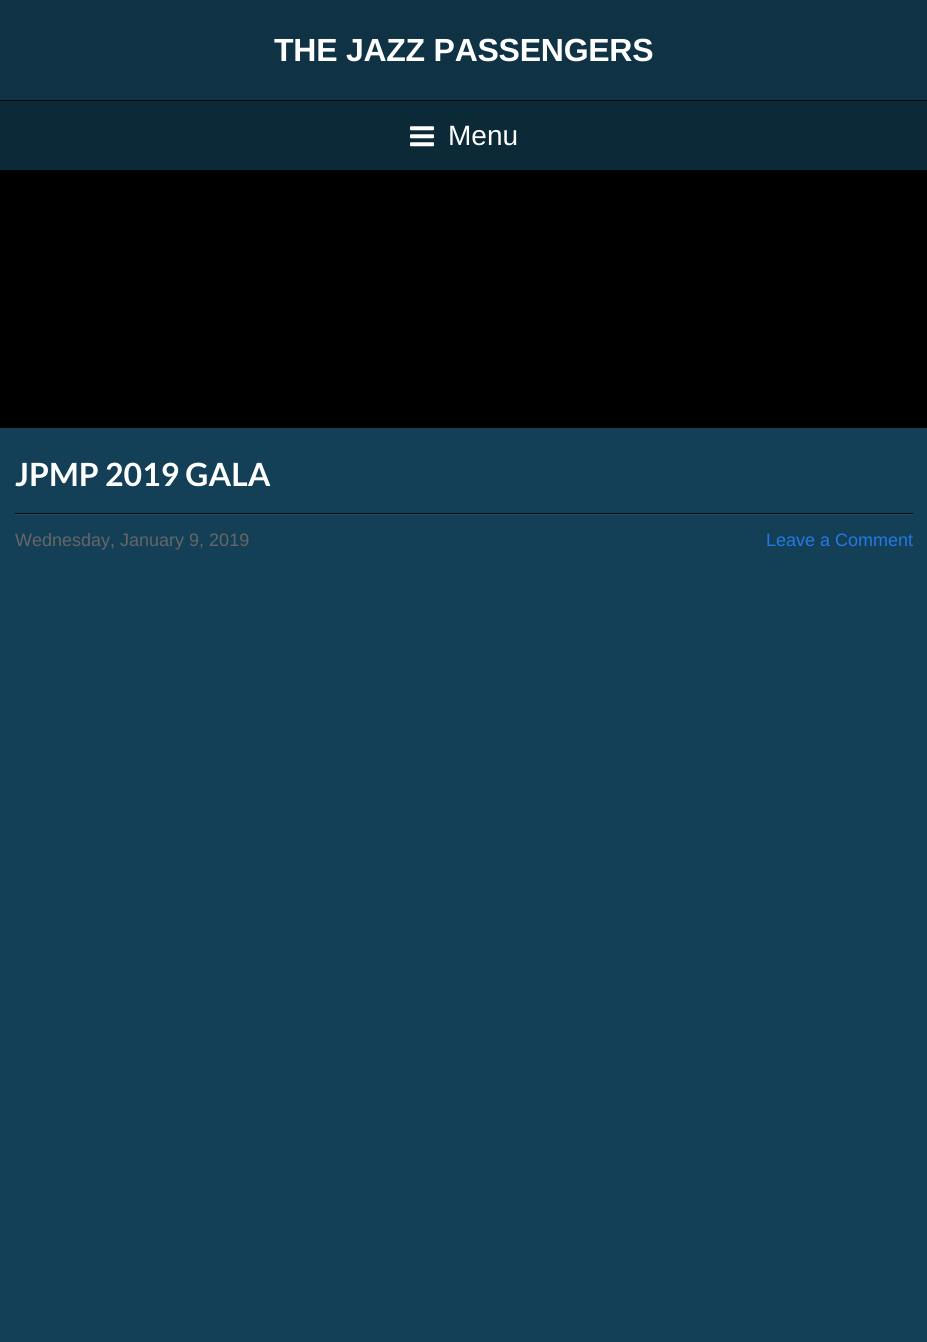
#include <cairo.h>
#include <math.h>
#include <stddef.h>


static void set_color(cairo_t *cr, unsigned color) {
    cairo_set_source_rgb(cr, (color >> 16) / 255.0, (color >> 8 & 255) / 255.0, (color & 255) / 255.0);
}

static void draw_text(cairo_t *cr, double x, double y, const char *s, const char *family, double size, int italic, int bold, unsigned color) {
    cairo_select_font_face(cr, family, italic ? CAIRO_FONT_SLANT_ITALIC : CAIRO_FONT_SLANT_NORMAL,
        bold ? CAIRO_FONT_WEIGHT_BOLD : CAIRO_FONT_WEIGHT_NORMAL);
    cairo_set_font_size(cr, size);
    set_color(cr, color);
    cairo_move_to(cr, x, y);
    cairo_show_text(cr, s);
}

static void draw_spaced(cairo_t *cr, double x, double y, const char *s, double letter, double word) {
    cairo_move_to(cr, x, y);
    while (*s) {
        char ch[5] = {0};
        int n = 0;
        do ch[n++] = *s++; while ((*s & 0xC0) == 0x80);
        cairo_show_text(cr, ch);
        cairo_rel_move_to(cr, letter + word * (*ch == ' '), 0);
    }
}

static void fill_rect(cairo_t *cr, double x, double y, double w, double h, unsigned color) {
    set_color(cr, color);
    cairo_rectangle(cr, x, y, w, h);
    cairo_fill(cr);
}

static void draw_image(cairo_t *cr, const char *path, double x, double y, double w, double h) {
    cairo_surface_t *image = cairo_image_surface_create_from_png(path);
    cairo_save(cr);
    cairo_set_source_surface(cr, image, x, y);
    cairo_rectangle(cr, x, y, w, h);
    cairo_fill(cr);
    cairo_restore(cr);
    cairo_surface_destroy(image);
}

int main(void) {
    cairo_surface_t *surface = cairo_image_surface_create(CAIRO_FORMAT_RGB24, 927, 1342);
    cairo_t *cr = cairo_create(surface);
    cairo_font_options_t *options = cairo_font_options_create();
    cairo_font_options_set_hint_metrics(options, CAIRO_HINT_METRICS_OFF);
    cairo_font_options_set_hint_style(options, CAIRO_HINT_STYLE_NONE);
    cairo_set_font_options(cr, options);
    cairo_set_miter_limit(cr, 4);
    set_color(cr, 0x134056);
    cairo_paint(cr);
    fill_rect(cr, 0, 0, 927, 100, 0x0F3345);
    cairo_select_font_face(cr, "Liberation Sans", CAIRO_FONT_SLANT_NORMAL, CAIRO_FONT_WEIGHT_BOLD);
    cairo_set_font_size(cr, 32);
    set_color(cr, 0xFFFFFF);
    draw_spaced(cr, 274, 61, "THE JAZZ PASSENGERS", -0.25, 0);
    fill_rect(cr, 0, 101, 927, 69, 0x0C2937);
    fill_rect(cr, 0, 100, 927, 1, 0x02080B);
    draw_image(cr, "assets/img1.png", 410, 126, 24, 21);
    draw_text(cr, 448, 145, "Menu", "Liberation Sans", 28, 0, 0, 0xFFFFFF);
    fill_rect(cr, 0, 170, 927, 258, 0x000000);
    fill_rect(cr, 15, 513, 898, 1, 0x040D11);
    draw_text(cr, 15, 486, "JPMP 2019 GALA", "Lato", 32, 0, 1, 0xFFFFFF);
    fill_rect(cr, 15, 514, 898, 1, 0x264F64);
    draw_text(cr, 15, 546, "Wednesday, January 9, 2019", "Liberation Sans", 18, 0, 0, 0x666666);
    draw_text(cr, 766, 546, "Leave a Comment", "Liberation Sans", 18, 0, 0, 0x2478E5);
    cairo_surface_write_to_png(surface, "output.png");
    cairo_font_options_destroy(options);
    cairo_destroy(cr);
    cairo_surface_destroy(surface);
    return 0;
}
